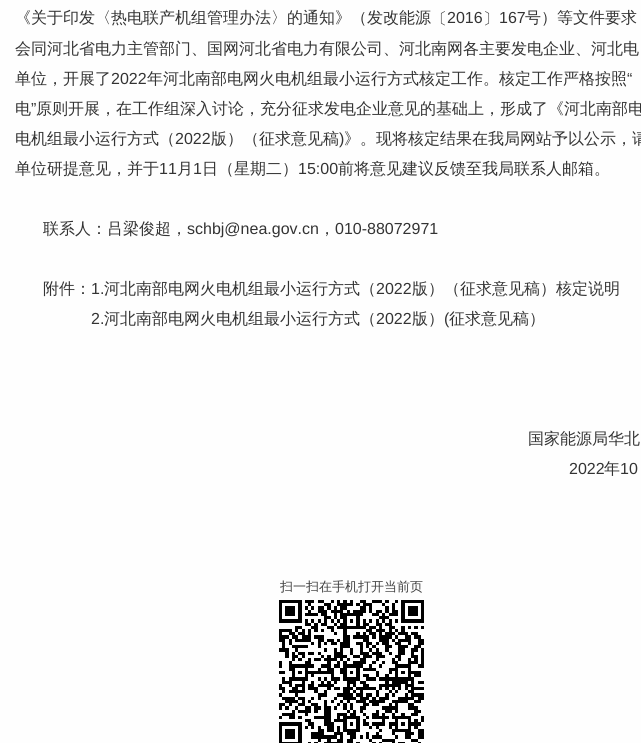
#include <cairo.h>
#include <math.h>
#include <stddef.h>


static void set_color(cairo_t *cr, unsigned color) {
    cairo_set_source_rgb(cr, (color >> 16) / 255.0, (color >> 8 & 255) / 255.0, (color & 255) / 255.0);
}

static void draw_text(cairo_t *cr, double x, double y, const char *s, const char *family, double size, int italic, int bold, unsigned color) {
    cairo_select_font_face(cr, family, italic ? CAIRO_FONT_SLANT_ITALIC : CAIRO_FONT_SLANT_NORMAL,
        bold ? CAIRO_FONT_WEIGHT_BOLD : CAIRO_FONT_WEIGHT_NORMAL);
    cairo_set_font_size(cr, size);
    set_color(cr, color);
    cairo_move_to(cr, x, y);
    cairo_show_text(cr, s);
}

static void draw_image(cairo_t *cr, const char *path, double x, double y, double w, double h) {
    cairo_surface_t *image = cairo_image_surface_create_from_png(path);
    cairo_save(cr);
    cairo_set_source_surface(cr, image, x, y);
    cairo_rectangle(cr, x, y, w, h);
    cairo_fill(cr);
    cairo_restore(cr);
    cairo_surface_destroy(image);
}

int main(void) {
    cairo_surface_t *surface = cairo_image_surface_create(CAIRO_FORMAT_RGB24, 641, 743);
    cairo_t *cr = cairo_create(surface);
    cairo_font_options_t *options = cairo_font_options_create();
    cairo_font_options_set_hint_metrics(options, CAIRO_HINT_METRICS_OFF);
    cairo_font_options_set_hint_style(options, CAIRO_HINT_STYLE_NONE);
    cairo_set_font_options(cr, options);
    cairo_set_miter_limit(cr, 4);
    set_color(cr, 0xFEFEFE);
    cairo_paint(cr);
    draw_text(cr, 15, 23, "《关于印发〈热电联产机组管理办法〉的通知》（发改能源", "WenQuanYi Zen Hei Medium", 16, 0, 0, 0x333333);
    draw_text(cr, 431, 24, "〔", "WenQuanYi Zen Hei Medium", 16, 0, 0, 0x333333);
    draw_text(cr, 447, 23, "2016", "Liberation Sans", 16, 0, 0, 0x333333);
    draw_text(cr, 483, 24, "〕", "WenQuanYi Zen Hei Medium", 16, 0, 0, 0x333333);
    draw_text(cr, 499, 23, "167", "Liberation Sans", 16, 0, 0, 0x333333);
    draw_text(cr, 525, 23, "号）等文件要求", "WenQuanYi Zen Hei Medium", 16, 0, 0, 0x333333);
    draw_text(cr, 15, 54, "会同河北省电力主管部门、国网河北省电力有限公司、河北南网各主要发电企业、河北电", "WenQuanYi Zen Hei Medium", 16, 0, 0, 0x333333);
    draw_text(cr, 15, 84, "单位，开展了", "WenQuanYi Zen Hei Medium", 16, 0, 0, 0x333333);
    draw_text(cr, 111, 84, "2022", "Liberation Sans", 16, 0, 0, 0x333333);
    draw_text(cr, 147, 84, "年河北南部电网火电机组最小运行方式核定工作。核定工作严格按照", "WenQuanYi Zen Hei Medium", 16, 0, 0, 0x333333);
    draw_text(cr, 627, 84, "“", "Liberation Sans", 16, 0, 0, 0x333333);
    draw_text(cr, 15, 114, "电", "WenQuanYi Zen Hei Medium", 16, 0, 0, 0x333333);
    draw_text(cr, 31, 114, "”", "Liberation Sans", 16, 0, 0, 0x333333);
    draw_text(cr, 36, 114, "原则开展，在工作组深入讨论，充分征求发电企业意见的基础上，形成了《河北南部电", "WenQuanYi Zen Hei Medium", 16, 0, 0, 0x333333);
    draw_text(cr, 15, 144, "电机组最小运行方式（", "WenQuanYi Zen Hei Medium", 16, 0, 0, 0x333333);
    draw_text(cr, 175, 144, "2022", "Liberation Sans", 16, 0, 0, 0x333333);
    draw_text(cr, 211, 144, "版）（征求意见稿", "WenQuanYi Zen Hei Medium", 16, 0, 0, 0x333333);
    draw_text(cr, 339, 144, ")", "Liberation Sans", 16, 0, 0, 0x333333);
    draw_text(cr, 344, 144, "》。现将核定结果在我局网站予以公示，请", "WenQuanYi Zen Hei Medium", 16, 0, 0, 0x333333);
    draw_text(cr, 15, 174, "单位研提意见，并于", "WenQuanYi Zen Hei Medium", 16, 0, 0, 0x333333);
    draw_text(cr, 159, 174, "11", "Liberation Sans", 16, 0, 0, 0x333333);
    draw_text(cr, 177, 174, "月", "WenQuanYi Zen Hei Medium", 16, 0, 0, 0x333333);
    draw_text(cr, 193, 174, "1", "Liberation Sans", 16, 0, 0, 0x333333);
    draw_text(cr, 202, 174, "日（星期二）", "WenQuanYi Zen Hei Medium", 16, 0, 0, 0x333333);
    draw_text(cr, 298, 174, "15:00", "Liberation Sans", 16, 0, 0, 0x333333);
    draw_text(cr, 338, 174, "前将意见建议反馈至我局联系人邮箱。", "WenQuanYi Zen Hei Medium", 16, 0, 0, 0x333333);
    draw_text(cr, 43, 234, "联系人：吕梁俊超，", "WenQuanYi Zen Hei Medium", 16, 0, 0, 0x333333);
    draw_text(cr, 187, 234, "schbj@nea.gov.cn", "Liberation Sans", 16, 0, 0, 0x333333);
    draw_text(cr, 319, 234, "，", "WenQuanYi Zen Hei Medium", 16, 0, 0, 0x333333);
    draw_text(cr, 335, 234, "010-88072971", "Liberation Sans", 16, 0, 0, 0x333333);
    draw_text(cr, 43, 294, "附件：", "WenQuanYi Zen Hei Medium", 16, 0, 0, 0x333333);
    draw_text(cr, 91, 294, "1.", "Liberation Sans", 16, 0, 0, 0x333333);
    draw_text(cr, 104, 294, "河北南部电网火电机组最小运行方式（", "WenQuanYi Zen Hei Medium", 16, 0, 0, 0x333333);
    draw_text(cr, 376, 294, "2022", "Liberation Sans", 16, 0, 0, 0x333333);
    draw_text(cr, 412, 294, "版）（征求意见稿）核定说明", "WenQuanYi Zen Hei Medium", 16, 0, 0, 0x333333);
    draw_text(cr, 91, 324, "2.", "Liberation Sans", 16, 0, 0, 0x333333);
    draw_text(cr, 104, 324, "河北南部电网火电机组最小运行方式（", "WenQuanYi Zen Hei Medium", 16, 0, 0, 0x333333);
    draw_text(cr, 376, 324, "2022", "Liberation Sans", 16, 0, 0, 0x333333);
    draw_text(cr, 412, 324, "版）", "WenQuanYi Zen Hei Medium", 16, 0, 0, 0x333333);
    draw_text(cr, 444, 324, "(", "Liberation Sans", 16, 0, 0, 0x333333);
    draw_text(cr, 449, 324, "征求意见稿）", "WenQuanYi Zen Hei Medium", 16, 0, 0, 0x333333);
    draw_text(cr, 528, 444, "国家能源局华北", "WenQuanYi Zen Hei Medium", 16, 0, 0, 0x333333);
    draw_text(cr, 569, 474, "2022", "Liberation Sans", 16, 0, 0, 0x333333);
    draw_text(cr, 604, 474, "年", "WenQuanYi Zen Hei Medium", 16, 0, 0, 0x333333);
    draw_text(cr, 620, 474, "10", "Liberation Sans", 16, 0, 0, 0x333333);
    draw_text(cr, 280, 591, "扫一扫在手机打开当前页", "WenQuanYi Zen Hei Medium", 13, 0, 0, 0x434343);
    draw_image(cr, "assets/img1.png", 279, 600, 145, 143);
    cairo_surface_write_to_png(surface, "output.png");
    cairo_font_options_destroy(options);
    cairo_destroy(cr);
    cairo_surface_destroy(surface);
    return 0;
}
